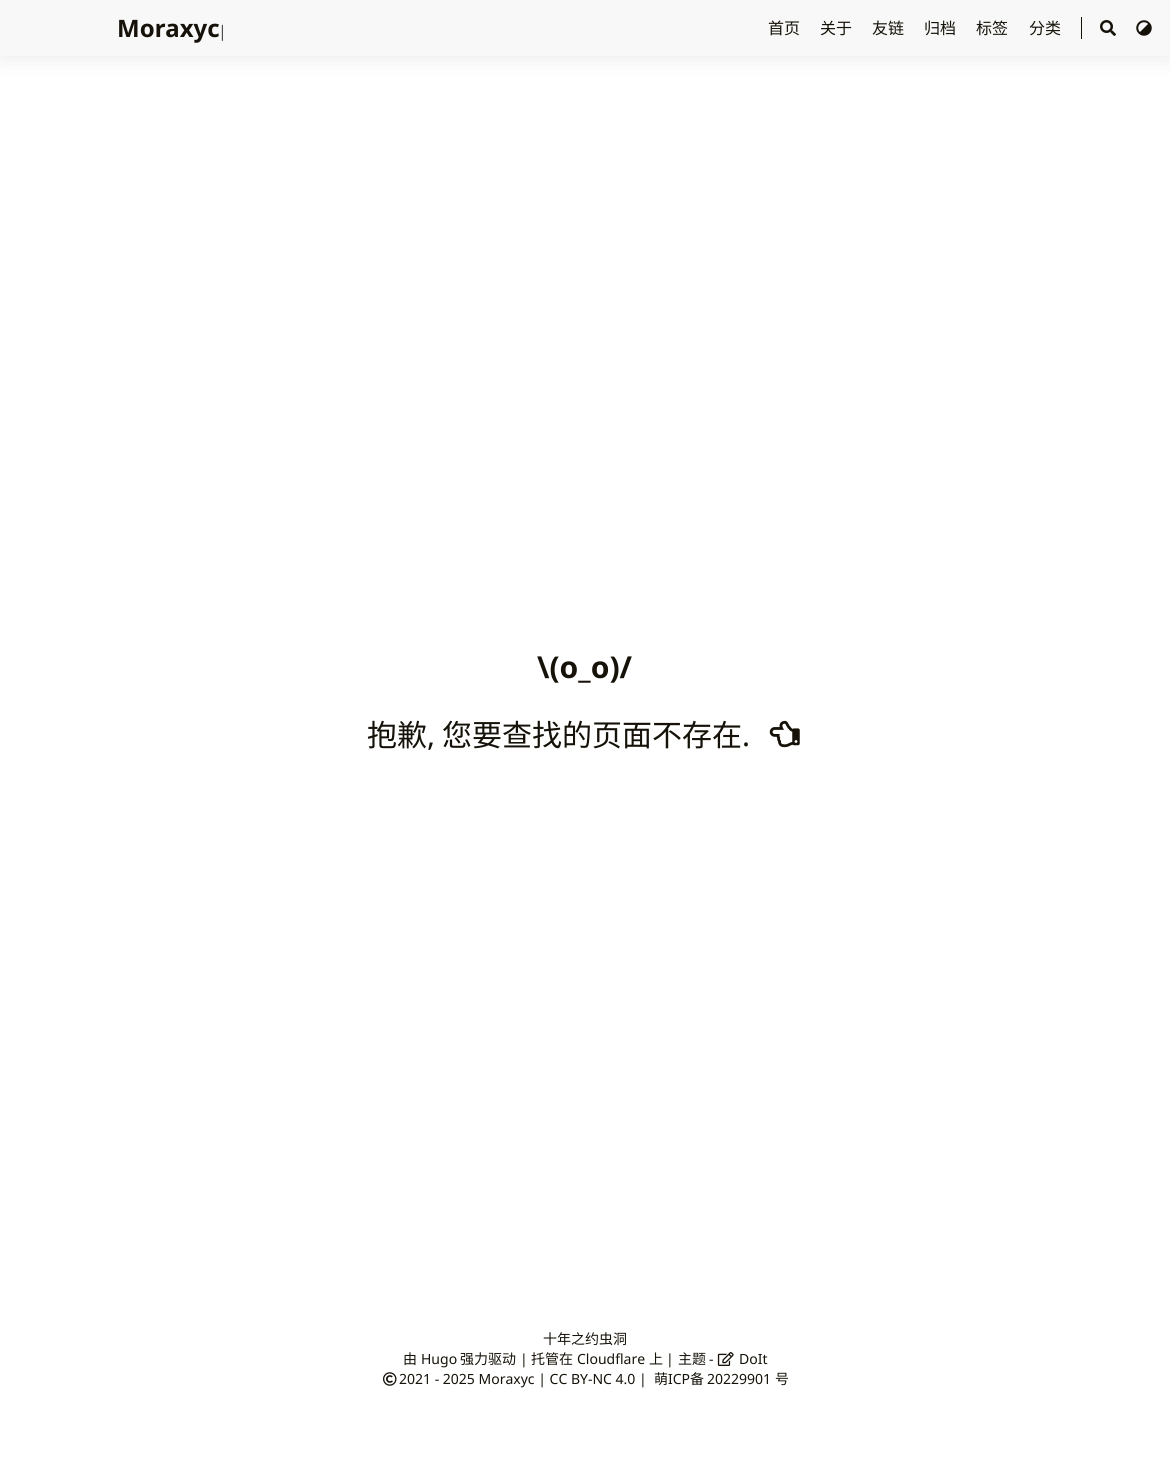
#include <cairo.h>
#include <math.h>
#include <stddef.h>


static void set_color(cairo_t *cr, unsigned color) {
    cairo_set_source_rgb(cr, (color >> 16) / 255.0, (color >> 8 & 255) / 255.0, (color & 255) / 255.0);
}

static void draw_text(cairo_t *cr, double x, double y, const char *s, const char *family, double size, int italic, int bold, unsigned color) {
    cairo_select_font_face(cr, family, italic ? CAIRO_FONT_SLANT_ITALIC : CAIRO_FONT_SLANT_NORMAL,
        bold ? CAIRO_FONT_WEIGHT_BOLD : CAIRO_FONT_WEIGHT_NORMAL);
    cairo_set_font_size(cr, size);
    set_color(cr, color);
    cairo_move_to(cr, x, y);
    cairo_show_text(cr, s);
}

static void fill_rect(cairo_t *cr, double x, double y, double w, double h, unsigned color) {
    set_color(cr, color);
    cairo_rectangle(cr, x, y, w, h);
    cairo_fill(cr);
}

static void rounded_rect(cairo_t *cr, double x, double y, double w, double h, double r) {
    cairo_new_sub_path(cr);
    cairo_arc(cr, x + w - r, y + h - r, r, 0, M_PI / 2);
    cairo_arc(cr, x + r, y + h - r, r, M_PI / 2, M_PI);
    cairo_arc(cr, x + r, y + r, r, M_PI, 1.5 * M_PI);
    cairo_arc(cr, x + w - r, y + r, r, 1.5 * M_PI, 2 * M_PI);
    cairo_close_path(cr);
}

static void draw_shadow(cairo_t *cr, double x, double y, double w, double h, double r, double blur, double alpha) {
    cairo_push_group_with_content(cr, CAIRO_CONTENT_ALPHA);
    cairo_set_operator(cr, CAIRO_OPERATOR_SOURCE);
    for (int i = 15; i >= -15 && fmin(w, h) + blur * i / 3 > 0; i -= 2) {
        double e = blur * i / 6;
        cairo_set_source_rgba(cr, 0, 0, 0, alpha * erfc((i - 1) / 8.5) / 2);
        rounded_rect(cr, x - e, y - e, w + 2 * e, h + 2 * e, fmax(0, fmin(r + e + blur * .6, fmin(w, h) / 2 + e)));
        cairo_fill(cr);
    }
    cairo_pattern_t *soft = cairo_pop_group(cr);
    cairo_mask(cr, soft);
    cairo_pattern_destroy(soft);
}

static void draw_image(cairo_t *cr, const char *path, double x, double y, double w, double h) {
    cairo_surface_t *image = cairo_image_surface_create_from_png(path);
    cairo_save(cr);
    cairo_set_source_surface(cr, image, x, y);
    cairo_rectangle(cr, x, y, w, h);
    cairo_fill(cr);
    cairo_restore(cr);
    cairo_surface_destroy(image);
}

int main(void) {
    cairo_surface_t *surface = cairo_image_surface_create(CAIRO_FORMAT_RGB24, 1170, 1459);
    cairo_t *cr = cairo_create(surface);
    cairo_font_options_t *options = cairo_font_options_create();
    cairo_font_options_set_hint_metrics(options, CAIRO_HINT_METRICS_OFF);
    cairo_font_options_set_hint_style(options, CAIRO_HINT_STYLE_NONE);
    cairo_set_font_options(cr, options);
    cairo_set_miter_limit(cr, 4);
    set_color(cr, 0xFFFFFF);
    cairo_paint(cr);
    set_color(cr, 0x000000);
    draw_shadow(cr, 0, 0, 1170, 56, 0, 12, 0.1);
    fill_rect(cr, 0, 0, 1170, 56, 0xF8F8F8);
    draw_text(cr, 117, 37, "Moraxyc", "Noto Sans", 24, 0, 1, 0x161209);
    draw_text(cr, 218, 37, "|", "Noto Sans", 16, 0, 0, 0x4D4D4D);
    draw_text(cr, 768, 34, "首页", "Noto Sans CJK SC", 16, 0, 0, 0x161209);
    draw_text(cr, 820, 34, "关于", "Noto Sans CJK SC", 16, 0, 0, 0x161209);
    draw_text(cr, 872, 34, "友链", "Noto Sans CJK SC", 16, 0, 0, 0x161209);
    draw_text(cr, 924, 34, "归档", "Noto Sans CJK SC", 16, 0, 0, 0x161209);
    draw_text(cr, 976, 34, "标签", "Noto Sans CJK SC", 16, 0, 0, 0x161209);
    draw_text(cr, 1029, 34, "分类", "Noto Sans CJK SC", 16, 0, 0, 0x161209);
    fill_rect(cr, 1081, 17, 1, 22, 0x161209);
    draw_image(cr, "assets/img1.png", 1100, 20, 16, 16);
    draw_image(cr, "assets/img2.png", 1136, 20, 16, 16);
    draw_text(cr, 537, 678, "\\(o_o)/", "Noto Sans", 30, 0, 1, 0x161209);
    draw_text(cr, 367, 746, "抱歉", "Noto Sans CJK SC", 30, 0, 0, 0x161209);
    draw_text(cr, 427, 746, ",", "Noto Sans", 30, 0, 0, 0x161209);
    draw_text(cr, 442, 746, "您要查找的页面不存在", "Noto Sans CJK SC", 30, 0, 0, 0x161209);
    draw_text(cr, 742, 746, ".", "Noto Sans", 30, 0, 0, 0x161209);
    draw_image(cr, "assets/img3.png", 769, 720, 31, 28);
    draw_text(cr, 543, 1344, "十年之约虫洞", "Noto Sans CJK SC", 14, 0, 0, 0x161209);
    draw_text(cr, 403, 1364, "由", "Noto Sans CJK SC", 14, 0, 0, 0x161209);
    draw_text(cr, 421, 1364, "Hugo", "Noto Sans", 14, 0, 0, 0x161209);
    draw_text(cr, 460, 1364, "强力驱动", "Noto Sans CJK SC", 14, 0, 0, 0x161209);
    draw_text(cr, 520, 1364, "|", "Noto Sans", 14, 0, 0, 0x161209);
    draw_text(cr, 531, 1364, "托管在", "Noto Sans CJK SC", 14, 0, 0, 0x161209);
    draw_text(cr, 577, 1364, "Cloudflare", "Noto Sans", 14, 0, 0, 0x161209);
    draw_text(cr, 649, 1364, "上", "Noto Sans CJK SC", 14, 0, 0, 0x161209);
    draw_text(cr, 666, 1364, "|", "Noto Sans", 14, 0, 0, 0x161209);
    draw_text(cr, 678, 1364, "主题", "Noto Sans CJK SC", 14, 0, 0, 0x161209);
    draw_text(cr, 709, 1364, "-", "Noto Sans", 14, 0, 0, 0x161209);
    draw_image(cr, "assets/img4.png", 717, 1352, 17, 14);
    draw_text(cr, 739, 1364, "DoIt", "Noto Sans", 14, 0, 0, 0x161209);
    draw_image(cr, "assets/img5.png", 383, 1372, 14, 14);
    draw_text(cr, 399, 1384, "2021 - 2025 Moraxyc | CC BY-NC 4.0 |", "Noto Sans", 14, 0, 0, 0x161209);
    draw_text(cr, 654, 1384, "萌", "Noto Sans CJK SC", 14, 0, 0, 0x161209);
    draw_text(cr, 668, 1384, "ICP", "Noto Sans", 14, 0, 0, 0x161209);
    draw_text(cr, 690, 1384, "备", "Noto Sans CJK SC", 14, 0, 0, 0x161209);
    draw_text(cr, 707, 1384, "20229901", "Noto Sans", 14, 0, 0, 0x161209);
    draw_text(cr, 775, 1384, "号", "Noto Sans CJK SC", 14, 0, 0, 0x161209);
    cairo_surface_write_to_png(surface, "output.png");
    cairo_font_options_destroy(options);
    cairo_destroy(cr);
    cairo_surface_destroy(surface);
    return 0;
}
